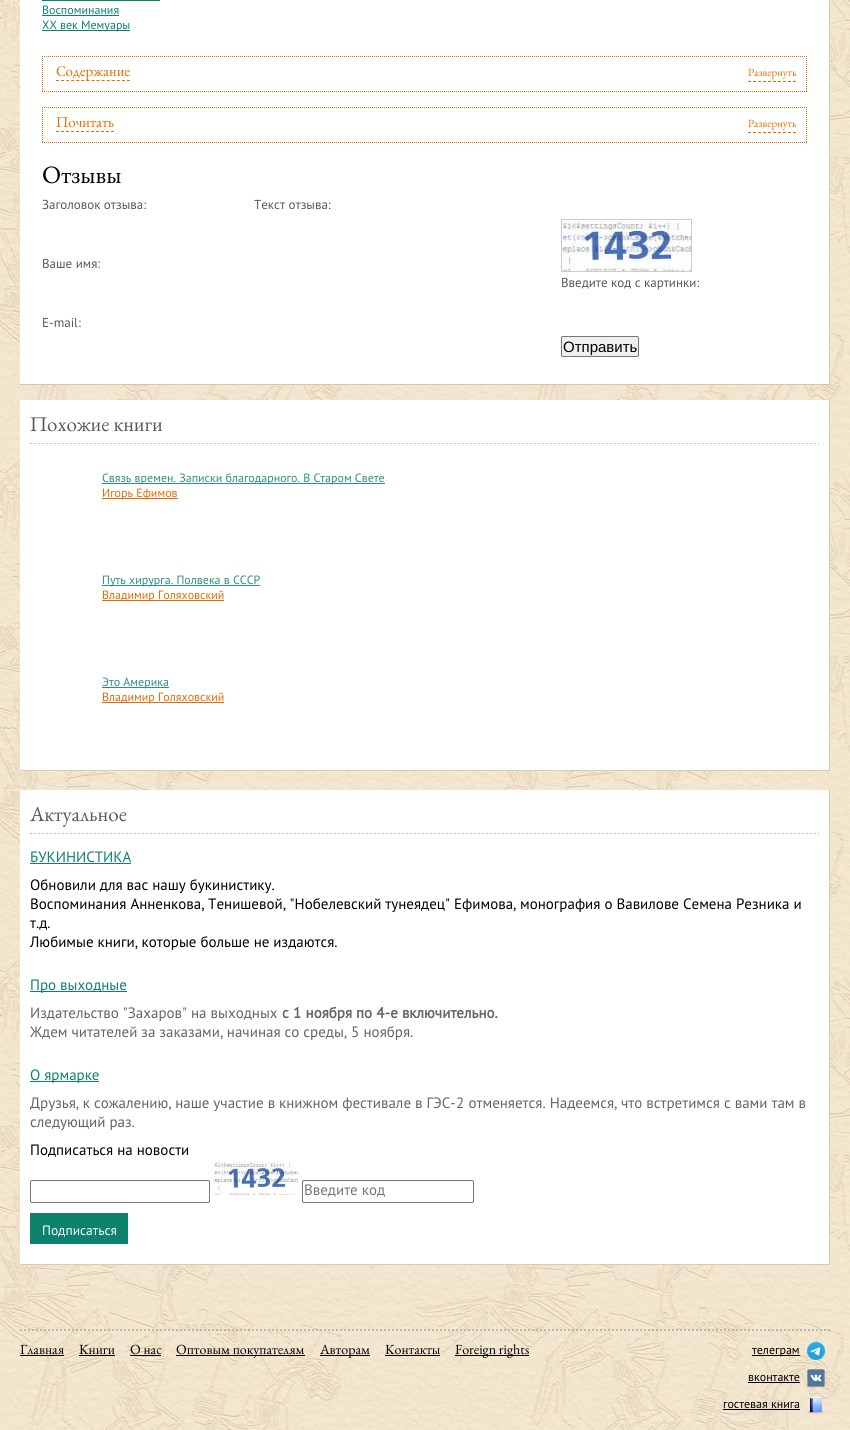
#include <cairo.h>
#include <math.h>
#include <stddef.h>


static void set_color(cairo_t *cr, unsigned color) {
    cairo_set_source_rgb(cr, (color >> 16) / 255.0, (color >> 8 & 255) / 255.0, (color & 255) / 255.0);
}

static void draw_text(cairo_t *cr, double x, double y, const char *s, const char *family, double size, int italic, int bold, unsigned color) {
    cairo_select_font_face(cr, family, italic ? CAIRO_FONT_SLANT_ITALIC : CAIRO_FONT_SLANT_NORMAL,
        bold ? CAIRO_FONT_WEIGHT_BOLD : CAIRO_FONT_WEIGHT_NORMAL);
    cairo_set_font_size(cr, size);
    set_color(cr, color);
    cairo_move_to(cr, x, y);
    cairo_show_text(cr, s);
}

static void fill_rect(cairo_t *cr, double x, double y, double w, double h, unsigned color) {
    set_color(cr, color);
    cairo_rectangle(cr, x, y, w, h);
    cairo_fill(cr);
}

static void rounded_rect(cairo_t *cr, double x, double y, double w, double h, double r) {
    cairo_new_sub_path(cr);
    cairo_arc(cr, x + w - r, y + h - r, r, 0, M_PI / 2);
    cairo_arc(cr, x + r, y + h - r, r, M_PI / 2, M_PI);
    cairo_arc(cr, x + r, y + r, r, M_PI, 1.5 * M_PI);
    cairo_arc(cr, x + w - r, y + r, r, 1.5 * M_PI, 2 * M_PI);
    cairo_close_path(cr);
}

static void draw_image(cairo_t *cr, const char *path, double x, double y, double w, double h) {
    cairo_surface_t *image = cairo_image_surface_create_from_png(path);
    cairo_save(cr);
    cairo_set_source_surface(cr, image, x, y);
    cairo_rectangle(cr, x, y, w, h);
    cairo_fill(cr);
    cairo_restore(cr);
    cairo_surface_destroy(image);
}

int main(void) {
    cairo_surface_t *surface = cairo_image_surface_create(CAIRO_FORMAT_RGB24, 850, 1430);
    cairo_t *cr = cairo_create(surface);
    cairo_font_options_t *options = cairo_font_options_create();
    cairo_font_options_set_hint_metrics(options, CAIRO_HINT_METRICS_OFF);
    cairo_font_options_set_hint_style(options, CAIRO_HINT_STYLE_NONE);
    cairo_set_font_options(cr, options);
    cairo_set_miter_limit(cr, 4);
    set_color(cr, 0xFFFFFF);
    cairo_paint(cr);
    draw_image(cr, "assets/img1.png", 0, 0, 850, 1430);
    fill_rect(cr, 20, 0, 809, 384, 0xFFFFFF);
    fill_rect(cr, 829, 0, 1, 385, 0xD6CDB8);
    fill_rect(cr, 20, 384, 810, 1, 0xD2C7B1);
    fill_rect(cr, 42, 0, 118, 1, 0x0C826C);
    draw_text(cr, 42, 14, "Воспоминания", "PT Sans", 12, 0, 0, 0x0C826C);
    fill_rect(cr, 42, 15, 77, 1, 0x0C826C);
    fill_rect(cr, 42, 30, 88, 1, 0x0C826C);
    draw_text(cr, 42, 29, "XX век Мемуары", "PT Sans", 12, 0, 0, 0x0C826C);
    cairo_new_path(cr);
    cairo_move_to(cr, 42, 56.5);
    cairo_line_to(cr, 807, 56.5);
    set_color(cr, 0xE46C02);
    cairo_set_line_width(cr, 1);
    cairo_set_dash(cr, (double[]){1, 1}, 2, 0);
    cairo_stroke(cr);
    cairo_new_path(cr);
    cairo_move_to(cr, 806.5, 56);
    cairo_line_to(cr, 806.5, 92);
    cairo_stroke(cr);
    cairo_new_path(cr);
    cairo_move_to(cr, 42, 91.5);
    cairo_line_to(cr, 807, 91.5);
    cairo_stroke(cr);
    cairo_new_path(cr);
    cairo_move_to(cr, 42.5, 56);
    cairo_line_to(cr, 42.5, 92);
    cairo_stroke(cr);
    cairo_new_path(cr);
    cairo_move_to(cr, 56, 80.5);
    cairo_line_to(cr, 130, 80.5);
    cairo_set_dash(cr, (double[]){3, 2.07}, 2, 0);
    cairo_stroke(cr);
    draw_text(cr, 56, 76, "Содержание", "EB Garamond", 15, 0, 0, 0xE46C02);
    cairo_new_path(cr);
    cairo_move_to(cr, 748, 81.5);
    cairo_line_to(cr, 796, 81.5);
    cairo_set_dash(cr, (double[]){3, 2}, 2, 0);
    cairo_stroke(cr);
    draw_text(cr, 748, 76, "Развернуть", "EB Garamond", 11, 0, 0, 0xE46C02);
    cairo_new_path(cr);
    cairo_move_to(cr, 42, 107.5);
    cairo_line_to(cr, 807, 107.5);
    cairo_set_dash(cr, (double[]){1, 1}, 2, 0);
    cairo_stroke(cr);
    cairo_new_path(cr);
    cairo_move_to(cr, 806.5, 107);
    cairo_line_to(cr, 806.5, 143);
    cairo_stroke(cr);
    cairo_new_path(cr);
    cairo_move_to(cr, 42, 142.5);
    cairo_line_to(cr, 807, 142.5);
    cairo_stroke(cr);
    cairo_new_path(cr);
    cairo_move_to(cr, 42.5, 107);
    cairo_line_to(cr, 42.5, 143);
    cairo_stroke(cr);
    cairo_new_path(cr);
    cairo_move_to(cr, 56, 131.5);
    cairo_line_to(cr, 114, 131.5);
    cairo_set_dash(cr, (double[]){3, 2}, 2, 0);
    cairo_stroke(cr);
    draw_text(cr, 56, 127, "Почитать", "EB Garamond", 15, 0, 0, 0xE46C02);
    cairo_new_path(cr);
    cairo_move_to(cr, 748, 132.5);
    cairo_line_to(cr, 796, 132.5);
    cairo_stroke(cr);
    draw_text(cr, 748, 127, "Развернуть", "EB Garamond", 11, 0, 0, 0xE46C02);
    draw_text(cr, 42, 183, "Отзывы", "EB Garamond", 25, 0, 0, 0x000000);
    draw_text(cr, 42, 209, "Заголовок отзыва:", "PT Sans", 13, 0, 0, 0x585858);
    draw_text(cr, 42, 268, "Ваше имя:", "PT Sans", 13, 0, 0, 0x585858);
    draw_text(cr, 42, 327, "E-mail:", "PT Sans", 13, 0, 0, 0x585858);
    draw_text(cr, 254, 209, "Текст отзыва:", "PT Sans", 13, 0, 0, 0x585858);
    cairo_rectangle(cr, 561.5, 219.5, 130, 52);
    set_color(cr, 0xCCCCCC);
    cairo_set_dash(cr, NULL, 0, 0);
    cairo_stroke(cr);
    draw_image(cr, "assets/img2.png", 562, 220, 129, 51);
    draw_text(cr, 561, 287, "Введите код с картинки:", "PT Sans", 13, 0, 0, 0x585858);
    set_color(cr, 0xEFEFEF);
    rounded_rect(cr, 561.5, 336.5, 77, 20, 1.5);
    cairo_fill_preserve(cr);
    set_color(cr, 0x767676);
    cairo_stroke(cr);
    draw_text(cr, 563, 352, "Отправить", "Liberation Sans", 15, 0, 0, 0x000000);
    fill_rect(cr, 20, 400, 809, 370, 0xFFFFFF);
    fill_rect(cr, 829, 400, 1, 371, 0xD6CDB8);
    fill_rect(cr, 20, 770, 810, 1, 0xD6CDB8);
    draw_image(cr, "assets/img3.png", 30, 443, 789, 1);
    draw_text(cr, 30, 431, "Похожие книги", "EB Garamond", 21, 0, 0, 0x585858);
    fill_rect(cr, 102, 483, 283, 1, 0x2A927E);
    draw_text(cr, 102, 482, "Связь времен. Записки благодарного. В Старом Свете", "PT Sans", 12, 0, 0, 0x2A927E);
    fill_rect(cr, 102, 498, 76, 1, 0xE46C02);
    draw_text(cr, 102, 497, "Игорь Ефимов", "PT Sans", 12, 0, 0, 0xE46C02);
    fill_rect(cr, 102, 585, 158, 1, 0x2A927E);
    draw_text(cr, 102, 584, "Путь хирурга. Полвека в СССР", "PT Sans", 12, 0, 0, 0x2A927E);
    fill_rect(cr, 102, 600, 122, 1, 0xE46C02);
    draw_text(cr, 102, 599, "Владимир Голяховский", "PT Sans", 12, 0, 0, 0xE46C02);
    fill_rect(cr, 102, 687, 67, 1, 0x2A927E);
    draw_text(cr, 102, 686, "Это Америка", "PT Sans", 12, 0, 0, 0x2A927E);
    fill_rect(cr, 102, 702, 122, 1, 0xE46C02);
    draw_text(cr, 102, 701, "Владимир Голяховский", "PT Sans", 12, 0, 0, 0xE46C02);
    fill_rect(cr, 20, 790, 809, 474, 0xFFFFFF);
    fill_rect(cr, 829, 790, 1, 475, 0xD6CDB8);
    fill_rect(cr, 20, 1264, 810, 1, 0xD6CDB8);
    draw_image(cr, "assets/img3.png", 30, 833, 789, 1);
    draw_text(cr, 30, 821, "Актуальное", "EB Garamond", 21, 0, 0, 0x585858);
    draw_text(cr, 30, 862, "БУКИНИСТИКА", "PT Sans", 15, 0, 0, 0x0C826C);
    fill_rect(cr, 30, 863, 101, 1, 0x0C826C);
    draw_text(cr, 30, 890, "Обновили для вас нашу букинистику.", "PT Sans", 15, 0, 0, 0x000000);
    draw_text(cr, 30, 909, "Воспоминания Анненкова, Тенишевой, \"Нобелевский тунеядец\" Ефимова, монография о Вавилове Семена Резника и", "PT Sans", 15, 0, 0, 0x000000);
    draw_text(cr, 30, 928, "т.д.", "PT Sans", 15, 0, 0, 0x000000);
    draw_text(cr, 30, 947, "Любимые книги, которые больше не издаются.", "PT Sans", 15, 0, 0, 0x000000);
    fill_rect(cr, 30, 991, 97, 1, 0x0C826C);
    draw_text(cr, 30, 990, "Про выходные", "PT Sans", 15, 0, 0, 0x0C826C);
    draw_text(cr, 30, 1018, "Издательство \"Захаров\" на выходных", "PT Sans", 15, 0, 0, 0x646464);
    draw_text(cr, 282, 1018, "с 1 ноября по 4-е включительно.", "PT Sans", 15, 0, 1, 0x646464);
    draw_text(cr, 30, 1037, "Ждем читателей за заказами, начиная со среды, 5 ноября.", "PT Sans", 15, 0, 0, 0x646464);
    fill_rect(cr, 30, 1081, 69, 1, 0x0C826C);
    draw_text(cr, 30, 1080, "О ярмарке", "PT Sans", 15, 0, 0, 0x0C826C);
    draw_text(cr, 30, 1108, "Друзья, к сожалению, наше участие в книжном фестивале в ГЭС-2 отменяется. Надеемся, что встретимся с вами там в", "PT Sans", 15, 0, 0, 0x646464);
    draw_text(cr, 30, 1127, "следующий раз.", "PT Sans", 15, 0, 0, 0x646464);
    draw_text(cr, 30, 1155, "Подписаться на новости", "PT Sans", 15, 0, 0, 0x000000);
    rounded_rect(cr, 30.5, 1180.5, 179, 22, 1.5);
    set_color(cr, 0x767676);
    cairo_stroke(cr);
    draw_image(cr, "assets/img4.png", 214, 1161, 84, 34);
    rounded_rect(cr, 302.5, 1180.5, 171, 22, 1.5);
    cairo_stroke(cr);
    draw_text(cr, 304, 1195, "Введите код", "PT Sans", 15, 0, 0, 0x757575);
    fill_rect(cr, 30, 1213, 98, 31, 0x0C826C);
    draw_text(cr, 42, 1235, "Подписаться", "PT Sans", 13.5, 0, 0, 0xFFFFFF);
    draw_image(cr, "assets/img5.png", 20, 1329, 810, 2);
    draw_text(cr, 20, 1354, "Главная", "EB Garamond", 14, 0, 0, 0x000000);
    fill_rect(cr, 20, 1355, 44, 1, 0x000000);
    draw_text(cr, 79, 1354, "Книги", "EB Garamond", 14, 0, 0, 0x000000);
    fill_rect(cr, 79, 1355, 36, 1, 0x000000);
    draw_text(cr, 130, 1354, "О нас", "EB Garamond", 14, 0, 0, 0x000000);
    fill_rect(cr, 130, 1355, 31, 1, 0x000000);
    fill_rect(cr, 176, 1355, 129, 1, 0x000000);
    draw_text(cr, 176, 1354, "Оптовым покупателям", "EB Garamond", 14, 0, 0, 0x000000);
    fill_rect(cr, 320, 1355, 50, 1, 0x000000);
    draw_text(cr, 320, 1354, "Авторам", "EB Garamond", 14, 0, 0, 0x000000);
    draw_text(cr, 385, 1354, "Контакты", "EB Garamond", 14, 0, 0, 0x000000);
    fill_rect(cr, 385, 1355, 55, 1, 0x000000);
    fill_rect(cr, 455, 1355, 74, 1, 0x000000);
    draw_text(cr, 455, 1354, "Foreign rights", "EB Garamond", 14, 0, 0, 0x000000);
    fill_rect(cr, 752, 1355, 48, 1, 0x000000);
    draw_text(cr, 752, 1354, "телеграм", "PT Sans", 12, 0, 0, 0x000000);
    draw_image(cr, "assets/img6.png", 807, 1342, 18, 18);
    draw_text(cr, 748, 1381, "вконтакте", "PT Sans", 12, 0, 0, 0x000000);
    fill_rect(cr, 748, 1382, 52, 1, 0x000000);
    draw_image(cr, "assets/img7.png", 807, 1369, 18, 18);
    draw_text(cr, 723, 1408, "гостевая книга", "PT Sans", 12, 0, 0, 0x000000);
    fill_rect(cr, 723, 1409, 77, 1, 0x000000);
    draw_image(cr, "assets/img8.png", 807, 1396, 18, 18);
    cairo_surface_write_to_png(surface, "output.png");
    cairo_font_options_destroy(options);
    cairo_destroy(cr);
    cairo_surface_destroy(surface);
    return 0;
}
